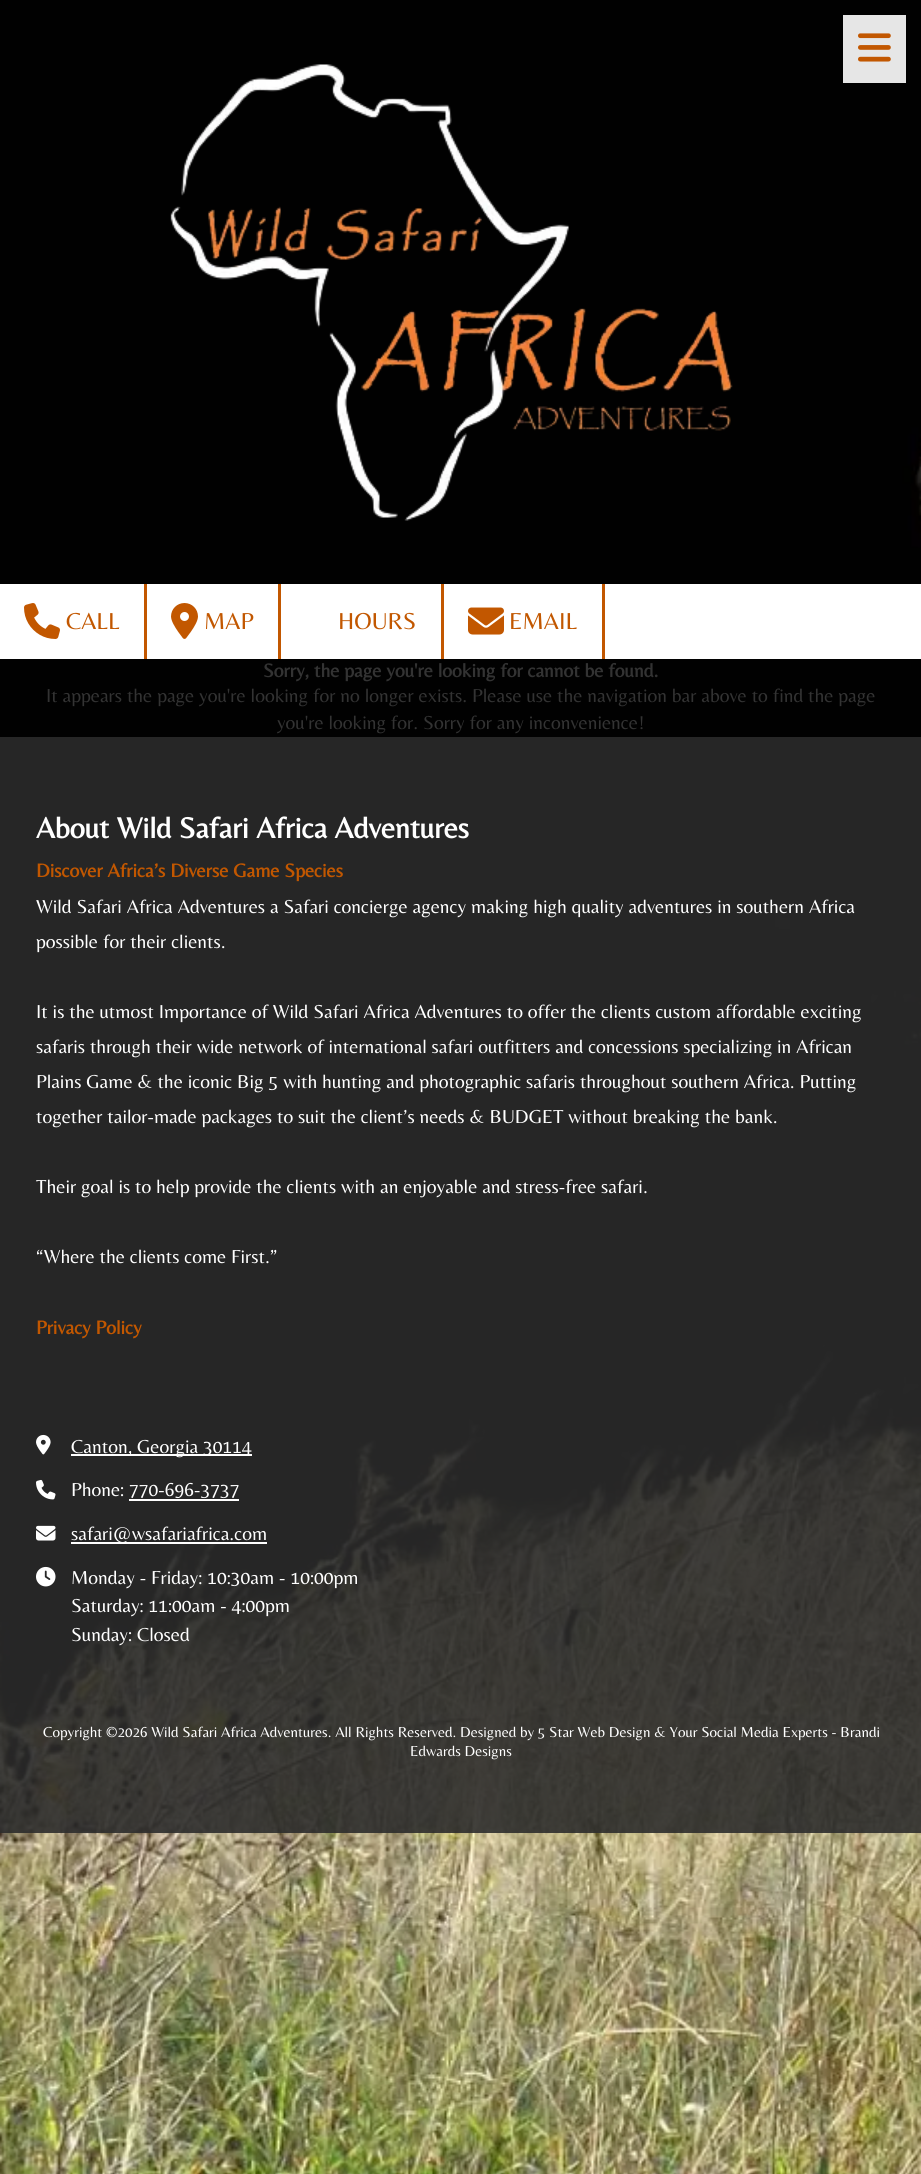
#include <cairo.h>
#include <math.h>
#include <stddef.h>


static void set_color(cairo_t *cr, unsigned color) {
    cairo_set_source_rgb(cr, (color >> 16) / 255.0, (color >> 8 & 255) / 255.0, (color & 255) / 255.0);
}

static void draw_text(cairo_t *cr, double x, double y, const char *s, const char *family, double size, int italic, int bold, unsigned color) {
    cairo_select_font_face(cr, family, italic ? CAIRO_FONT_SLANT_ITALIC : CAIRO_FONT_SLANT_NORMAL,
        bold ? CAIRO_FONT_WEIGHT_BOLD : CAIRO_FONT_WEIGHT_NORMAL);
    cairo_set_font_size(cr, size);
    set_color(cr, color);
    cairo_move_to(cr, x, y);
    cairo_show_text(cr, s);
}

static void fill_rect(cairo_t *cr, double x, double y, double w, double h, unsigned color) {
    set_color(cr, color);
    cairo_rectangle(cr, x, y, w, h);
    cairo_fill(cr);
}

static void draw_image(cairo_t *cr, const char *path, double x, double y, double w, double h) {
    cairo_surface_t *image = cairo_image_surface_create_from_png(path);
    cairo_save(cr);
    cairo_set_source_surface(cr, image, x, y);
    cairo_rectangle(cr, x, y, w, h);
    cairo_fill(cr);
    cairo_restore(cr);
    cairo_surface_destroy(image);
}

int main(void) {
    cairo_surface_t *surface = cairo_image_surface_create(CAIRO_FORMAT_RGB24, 921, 2174);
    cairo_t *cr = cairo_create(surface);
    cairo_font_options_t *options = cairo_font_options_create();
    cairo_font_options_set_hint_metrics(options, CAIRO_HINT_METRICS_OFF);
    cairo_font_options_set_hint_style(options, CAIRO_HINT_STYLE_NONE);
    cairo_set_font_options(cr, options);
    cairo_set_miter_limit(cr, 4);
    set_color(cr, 0xFFFFFF);
    cairo_paint(cr);
    draw_image(cr, "assets/img1.png", 0, 0, 921, 2174);
    cairo_set_source_rgba(cr, 0, 0, 0, 0.16);
    cairo_rectangle(cr, 917, 462, 4, 49);
    cairo_fill(cr);
    fill_rect(cr, 843, 15, 63, 68, 0xE6E6E6);
    draw_image(cr, "assets/img2.png", 858, 33, 33, 29);
    draw_image(cr, "assets/img3.png", 170, 64, 563, 457);
    fill_rect(cr, 0, 584, 921, 75, 0xFFFFFF);
    fill_rect(cr, 144, 584, 3, 75, 0xC25700);
    draw_image(cr, "assets/img4.png", 24, 603, 36, 36);
    draw_text(cr, 66, 629, "CALL", "Belleza", 24, 0, 0, 0xC25700);
    fill_rect(cr, 278, 584, 3, 75, 0xC25700);
    draw_image(cr, "assets/img5.png", 171, 603, 27, 36);
    draw_text(cr, 204, 629, "MAP", "Belleza", 24, 0, 0, 0xC25700);
    fill_rect(cr, 441, 584, 3, 75, 0xC25700);
    draw_text(cr, 338, 629, "HOURS", "Belleza", 24, 0, 0, 0xC25700);
    fill_rect(cr, 602, 584, 3, 75, 0xC25700);
    draw_image(cr, "assets/img6.png", 468, 607, 36, 28);
    draw_text(cr, 509, 629, "EMAIL", "Belleza", 24, 0, 0, 0xC25700);
    draw_text(cr, 263, 677, "Sorry, the page you're looking for cannot be found.", "Belleza", 19.5, 0, 1, 0x333333);
    draw_text(cr, 46, 702, "It appears the page you're looking for no longer exists. Please use the navigation bar above to find the page", "Belleza", 19.5, 0, 0, 0x333333);
    draw_text(cr, 277, 729, "you're looking for. Sorry for any inconvenience!", "Belleza", 19.5, 0, 0, 0x333333);
    cairo_set_source_rgba(cr, 0.169, 0.169, 0.169, 0.89);
    cairo_rectangle(cr, 0, 737, 921, 1096);
    cairo_fill(cr);
    draw_text(cr, 36, 838, "About Wild Safari Africa Adventures", "Belleza", 30, 0, 1, 0xFFFFFF);
    draw_text(cr, 36, 877, "Discover Africa’s Diverse Game Species", "Belleza", 19.5, 0, 1, 0xC25700);
    draw_text(cr, 36, 913, "Wild Safari Africa Adventures a Safari concierge agency making high quality adventures in southern Africa", "Belleza", 19.5, 0, 0, 0xFFFFFF);
    draw_text(cr, 36, 948, "possible for their clients.", "Belleza", 19.5, 0, 0, 0xFFFFFF);
    draw_text(cr, 36, 1018, "It is the utmost Importance of Wild Safari Africa Adventures to offer the clients custom affordable exciting", "Belleza", 19.5, 0, 0, 0xFFFFFF);
    draw_text(cr, 36, 1053, "safaris through their wide network of international safari outfitters and concessions specializing in African", "Belleza", 19.5, 0, 0, 0xFFFFFF);
    draw_text(cr, 36, 1088, "Plains Game & the iconic Big 5 with hunting and photographic safaris throughout southern Africa. Putting", "Belleza", 19.5, 0, 0, 0xFFFFFF);
    draw_text(cr, 36, 1123, "together tailor-made packages to suit the client’s needs & BUDGET without breaking the bank.", "Belleza", 19.5, 0, 0, 0xFFFFFF);
    draw_text(cr, 36, 1193, "Their goal is to help provide the clients with an enjoyable and stress-free safari.", "Belleza", 19.5, 0, 0, 0xFFFFFF);
    draw_text(cr, 36, 1263, "“Where the clients come First.”", "Belleza", 19.5, 0, 0, 0xFFFFFF);
    draw_text(cr, 36, 1334, "Privacy Policy", "Belleza", 19.5, 0, 1, 0xC25700);
    draw_image(cr, "assets/img7.png", 36, 1434, 15, 21);
    fill_rect(cr, 71, 1454, 181, 2, 0xFFFFFF);
    draw_text(cr, 71, 1453, "Canton, Georgia 30114", "Belleza", 19.5, 0, 0, 0xFFFFFF);
    draw_image(cr, "assets/img8.png", 36, 1479, 20, 21);
    draw_text(cr, 71, 1496, "Phone: 770-696-3737", "Belleza", 19.5, 0, 0, 0xFFFFFF);
    fill_rect(cr, 129, 1499, 110, 2, 0xFFFFFF);
    draw_image(cr, "assets/img9.png", 36, 1525, 20, 16);
    fill_rect(cr, 71, 1542, 196, 2, 0xFFFFFF);
    draw_text(cr, 71, 1540, "safari@wsafariafrica.com", "Belleza", 19.5, 0, 0, 0xFFFFFF);
    draw_image(cr, "assets/img10.png", 36, 1566, 20, 21);
    draw_text(cr, 71, 1584, "Monday - Friday: 10:30am - 10:00pm", "Belleza", 19.5, 0, 0, 0xFFFFFF);
    draw_text(cr, 71, 1612, "Saturday: 11:00am - 4:00pm", "Belleza", 19.5, 0, 0, 0xFFFFFF);
    draw_text(cr, 71, 1641, "Sunday: Closed", "Belleza", 19.5, 0, 0, 0xFFFFFF);
    draw_text(cr, 43, 1737, "Copyright ©2026 Wild Safari Africa Adventures. All Rights Reserved. Designed by 5 Star Web Design & Your Social Media Experts - Brandi", "Belleza", 15.02, 0, 0, 0xFFFFFF);
    draw_text(cr, 410, 1756, "Edwards Designs", "Belleza", 15.02, 0, 0, 0xFFFFFF);
    cairo_surface_write_to_png(surface, "output.png");
    cairo_font_options_destroy(options);
    cairo_destroy(cr);
    cairo_surface_destroy(surface);
    return 0;
}
